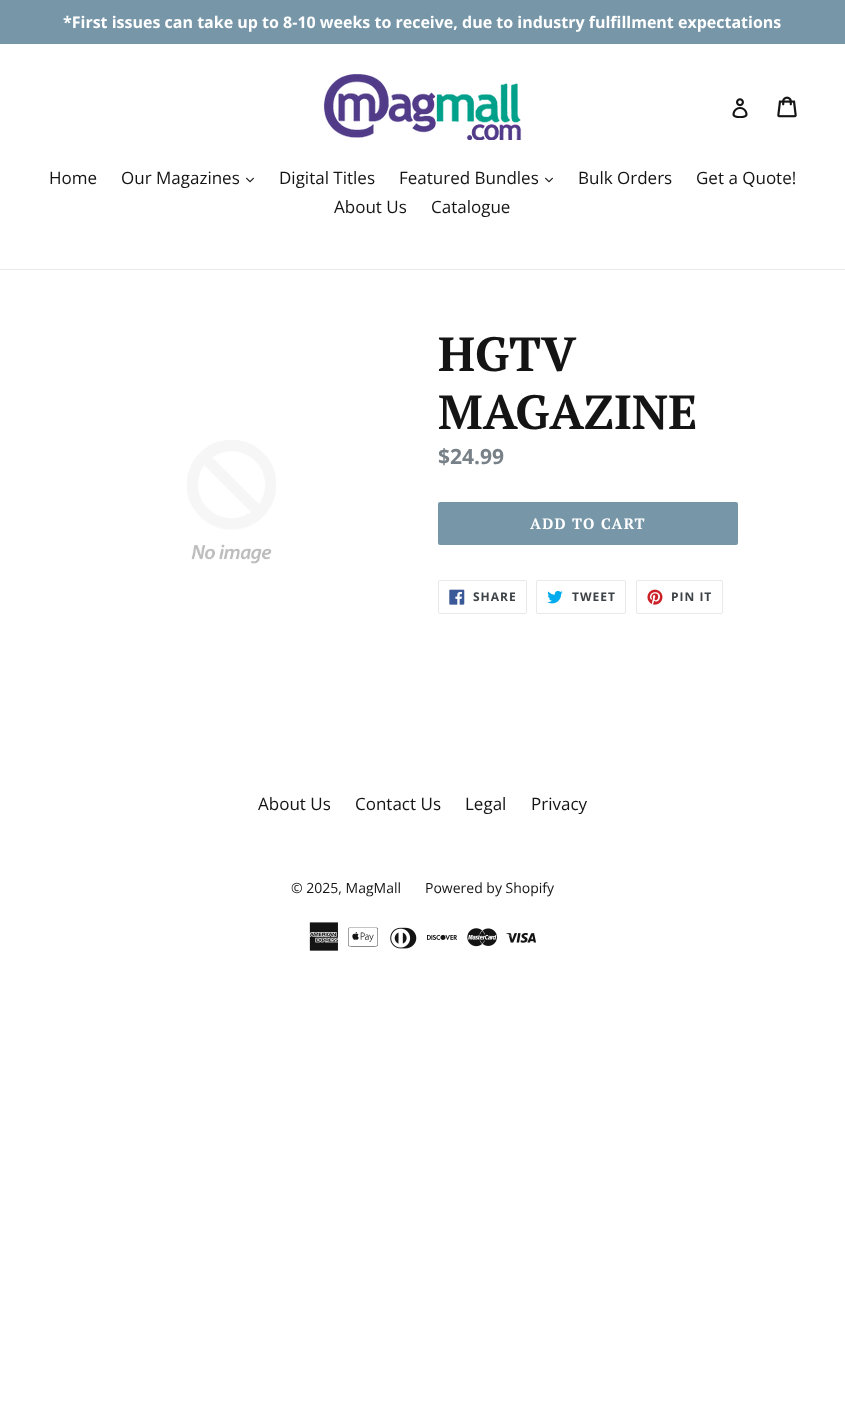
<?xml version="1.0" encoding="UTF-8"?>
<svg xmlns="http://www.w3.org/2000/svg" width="845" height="1426">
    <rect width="100%" height="100%" fill="#FFFFFF"/>
    <rect x="0" y="0" width="845" height="44" fill="#7796A8"/>
    <text x="63" y="28" font-family="Open Sans" font-size="16" font-weight="700" fill="#FFFFFF">*First issues can take up to 8-10 weeks to receive, due to industry fulfillment expectations</text>
    <image x="323" y="74" width="199" height="66" href="img_01.png"/>
    <image x="732" y="98" width="16" height="20" href="img_02.png"/>
    <image x="777" y="96" width="20" height="22" href="img_03.png"/>
    <rect x="0" y="269" width="845" height="1" fill="#E8E9EB"/>
    <text x="49" y="184" font-family="Open Sans" font-size="17" fill="#151414">Home</text>
    <text x="121" y="184" font-family="Open Sans" font-size="17" fill="#151414">Our Magazines</text>
    <image x="246" y="177" width="8" height="6" href="img_04.png"/>
    <text x="279" y="184" font-family="Open Sans" font-size="17" fill="#151414">Digital Titles</text>
    <text x="399" y="184" font-family="Open Sans" font-size="17" fill="#151414">Featured Bundles</text>
    <image x="545" y="177" width="8" height="6" href="img_04.png"/>
    <text x="578" y="184" font-family="Open Sans" font-size="17" fill="#151414">Bulk Orders</text>
    <text x="696" y="184" font-family="Open Sans" font-size="17" fill="#151414">Get a Quote!</text>
    <text x="334" y="213" font-family="Open Sans" font-size="17" fill="#151414">About Us</text>
    <text x="431" y="213" font-family="Open Sans" font-size="17" fill="#151414">Catalogue</text>
    <image x="187" y="440" width="89" height="124" href="img_05.png"/>
    <text font-family="PT Serif" font-size="48" font-weight="700" fill="#151414">
        <tspan x="438" y="371">HGTV</tspan>
        <tspan x="438" y="429">MAGAZINE</tspan>
    </text>
    <text x="438" y="464" font-family="Open Sans" font-size="21" font-weight="700" fill="#788188">$24.99</text>
    <rect x="438" y="502" width="300" height="43" rx="2" fill="#7796A8"/>
    <text x="530" y="529" font-family="PT Serif" font-size="15" font-weight="700" letter-spacing="1.25" fill="#FFFFFF">ADD TO CART</text>
    <rect x="438.5" y="580.5" width="88" height="33" rx="1.5" fill="none" stroke="#E8E9EB"/>
    <image x="449" y="589" width="16" height="16" href="img_06.png"/>
    <text x="473" y="601" font-family="Open Sans" font-size="12" font-weight="700" letter-spacing="1" fill="#3D4246">SHARE</text>
    <rect x="536.5" y="580.5" width="89" height="33" rx="1.5" fill="none" stroke="#E8E9EB"/>
    <image x="547" y="590" width="16" height="14" href="img_07.png"/>
    <text x="572" y="601" font-family="Open Sans" font-size="12" font-weight="700" letter-spacing="1" fill="#3D4246">TWEET</text>
    <rect x="636.5" y="580.5" width="86" height="33" rx="1.5" fill="none" stroke="#E8E9EB"/>
    <image x="647" y="589" width="16" height="16" href="img_08.png"/>
    <text x="671" y="601" font-family="Open Sans" font-size="12" font-weight="700" letter-spacing="1" fill="#3D4246">PIN IT</text>
    <text x="258" y="810" font-family="Open Sans" font-size="17" fill="#151414">About Us</text>
    <text x="355" y="810" font-family="Open Sans" font-size="17" fill="#151414">Contact Us</text>
    <text x="465" y="810" font-family="Open Sans" font-size="17" fill="#151414">Legal</text>
    <text x="531" y="810" font-family="Open Sans" font-size="17" fill="#151414">Privacy</text>
    <text x="291" y="893" font-family="Open Sans" font-size="14" fill="#151414">© 2025, MagMall</text>
    <text x="425" y="893" font-family="Open Sans" font-size="14" fill="#151414">Powered by Shopify</text>
    <image x="309" y="922" width="30" height="29" href="img_09.png"/>
    <image x="348" y="927" width="30" height="20" href="img_10.png"/>
    <image x="390" y="927" width="27" height="22" href="img_11.png"/>
    <image x="427" y="934" width="30" height="6" href="img_12.png"/>
    <image x="467" y="928" width="30" height="19" href="img_13.png"/>
    <image x="506" y="933" width="30" height="10" href="img_14.png"/>
</svg>
